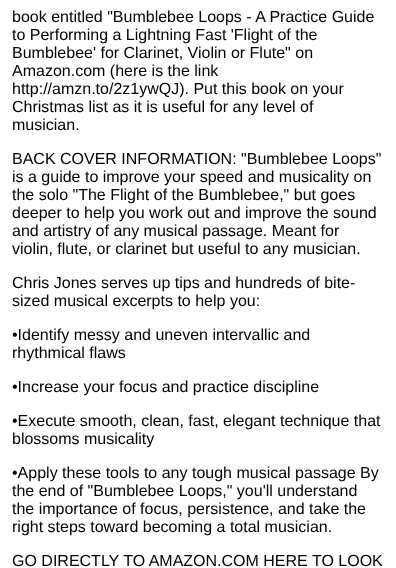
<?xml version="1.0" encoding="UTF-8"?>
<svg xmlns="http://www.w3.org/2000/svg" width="396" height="568">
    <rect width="100%" height="100%" fill="#FFFFFF"/>
    <text font-family="Liberation Sans" font-size="16" fill="#000000">
        <tspan x="12" y="22">book entitled "Bumblebee Loops - A Practice Guide</tspan>
        <tspan x="12" y="40">to Performing a Lightning Fast 'Flight of the</tspan>
        <tspan x="12" y="58">Bumblebee' for Clarinet, Violin or Flute" on</tspan>
        <tspan x="12" y="76">Amazon.com (here is the link</tspan>
        <tspan x="12" y="94">http://amzn.to/2z1ywQJ). Put this book on your</tspan>
        <tspan x="12" y="112">Christmas list as it is useful for any level of</tspan>
        <tspan x="12" y="130">musician.</tspan>
    </text>
    <text font-family="Liberation Sans" font-size="16" fill="#000000">
        <tspan x="12" y="164">BACK COVER INFORMATION: "Bumblebee Loops"</tspan>
        <tspan x="12" y="182">is a guide to improve your speed and musicality on</tspan>
        <tspan x="12" y="200">the solo "The Flight of the Bumblebee," but goes</tspan>
        <tspan x="12" y="218">deeper to help you work out and improve the sound</tspan>
        <tspan x="12" y="236">and artistry of any musical passage. Meant for</tspan>
        <tspan x="12" y="254">violin, flute, or clarinet but useful to any musician.</tspan>
    </text>
    <text font-family="Liberation Sans" font-size="16" fill="#000000">
        <tspan x="12" y="288">Chris Jones serves up tips and hundreds of bite-</tspan>
        <tspan x="12" y="306">sized musical excerpts to help you:</tspan>
    </text>
    <text font-family="Liberation Sans" font-size="16" fill="#000000">
        <tspan x="12" y="340">•Identify messy and uneven intervallic and</tspan>
        <tspan x="12" y="358">rhythmical flaws</tspan>
    </text>
    <text x="12" y="392" font-family="Liberation Sans" font-size="16" fill="#000000">•Increase your focus and practice discipline</text>
    <text font-family="Liberation Sans" font-size="16" fill="#000000">
        <tspan x="12" y="426">•Execute smooth, clean, fast, elegant technique that</tspan>
        <tspan x="12" y="444">blossoms musicality</tspan>
    </text>
    <text font-family="Liberation Sans" font-size="16" fill="#000000">
        <tspan x="12" y="478">•Apply these tools to any tough musical passage By</tspan>
        <tspan x="12" y="496">the end of "Bumblebee Loops," you'll understand</tspan>
        <tspan x="12" y="514">the importance of focus, persistence, and take the</tspan>
        <tspan x="12" y="532">right steps toward becoming a total musician.</tspan>
    </text>
    <text x="12" y="566" font-family="Liberation Sans" font-size="16" fill="#000000">GO DIRECTLY TO AMAZON.COM HERE TO LOOK</text>
</svg>
